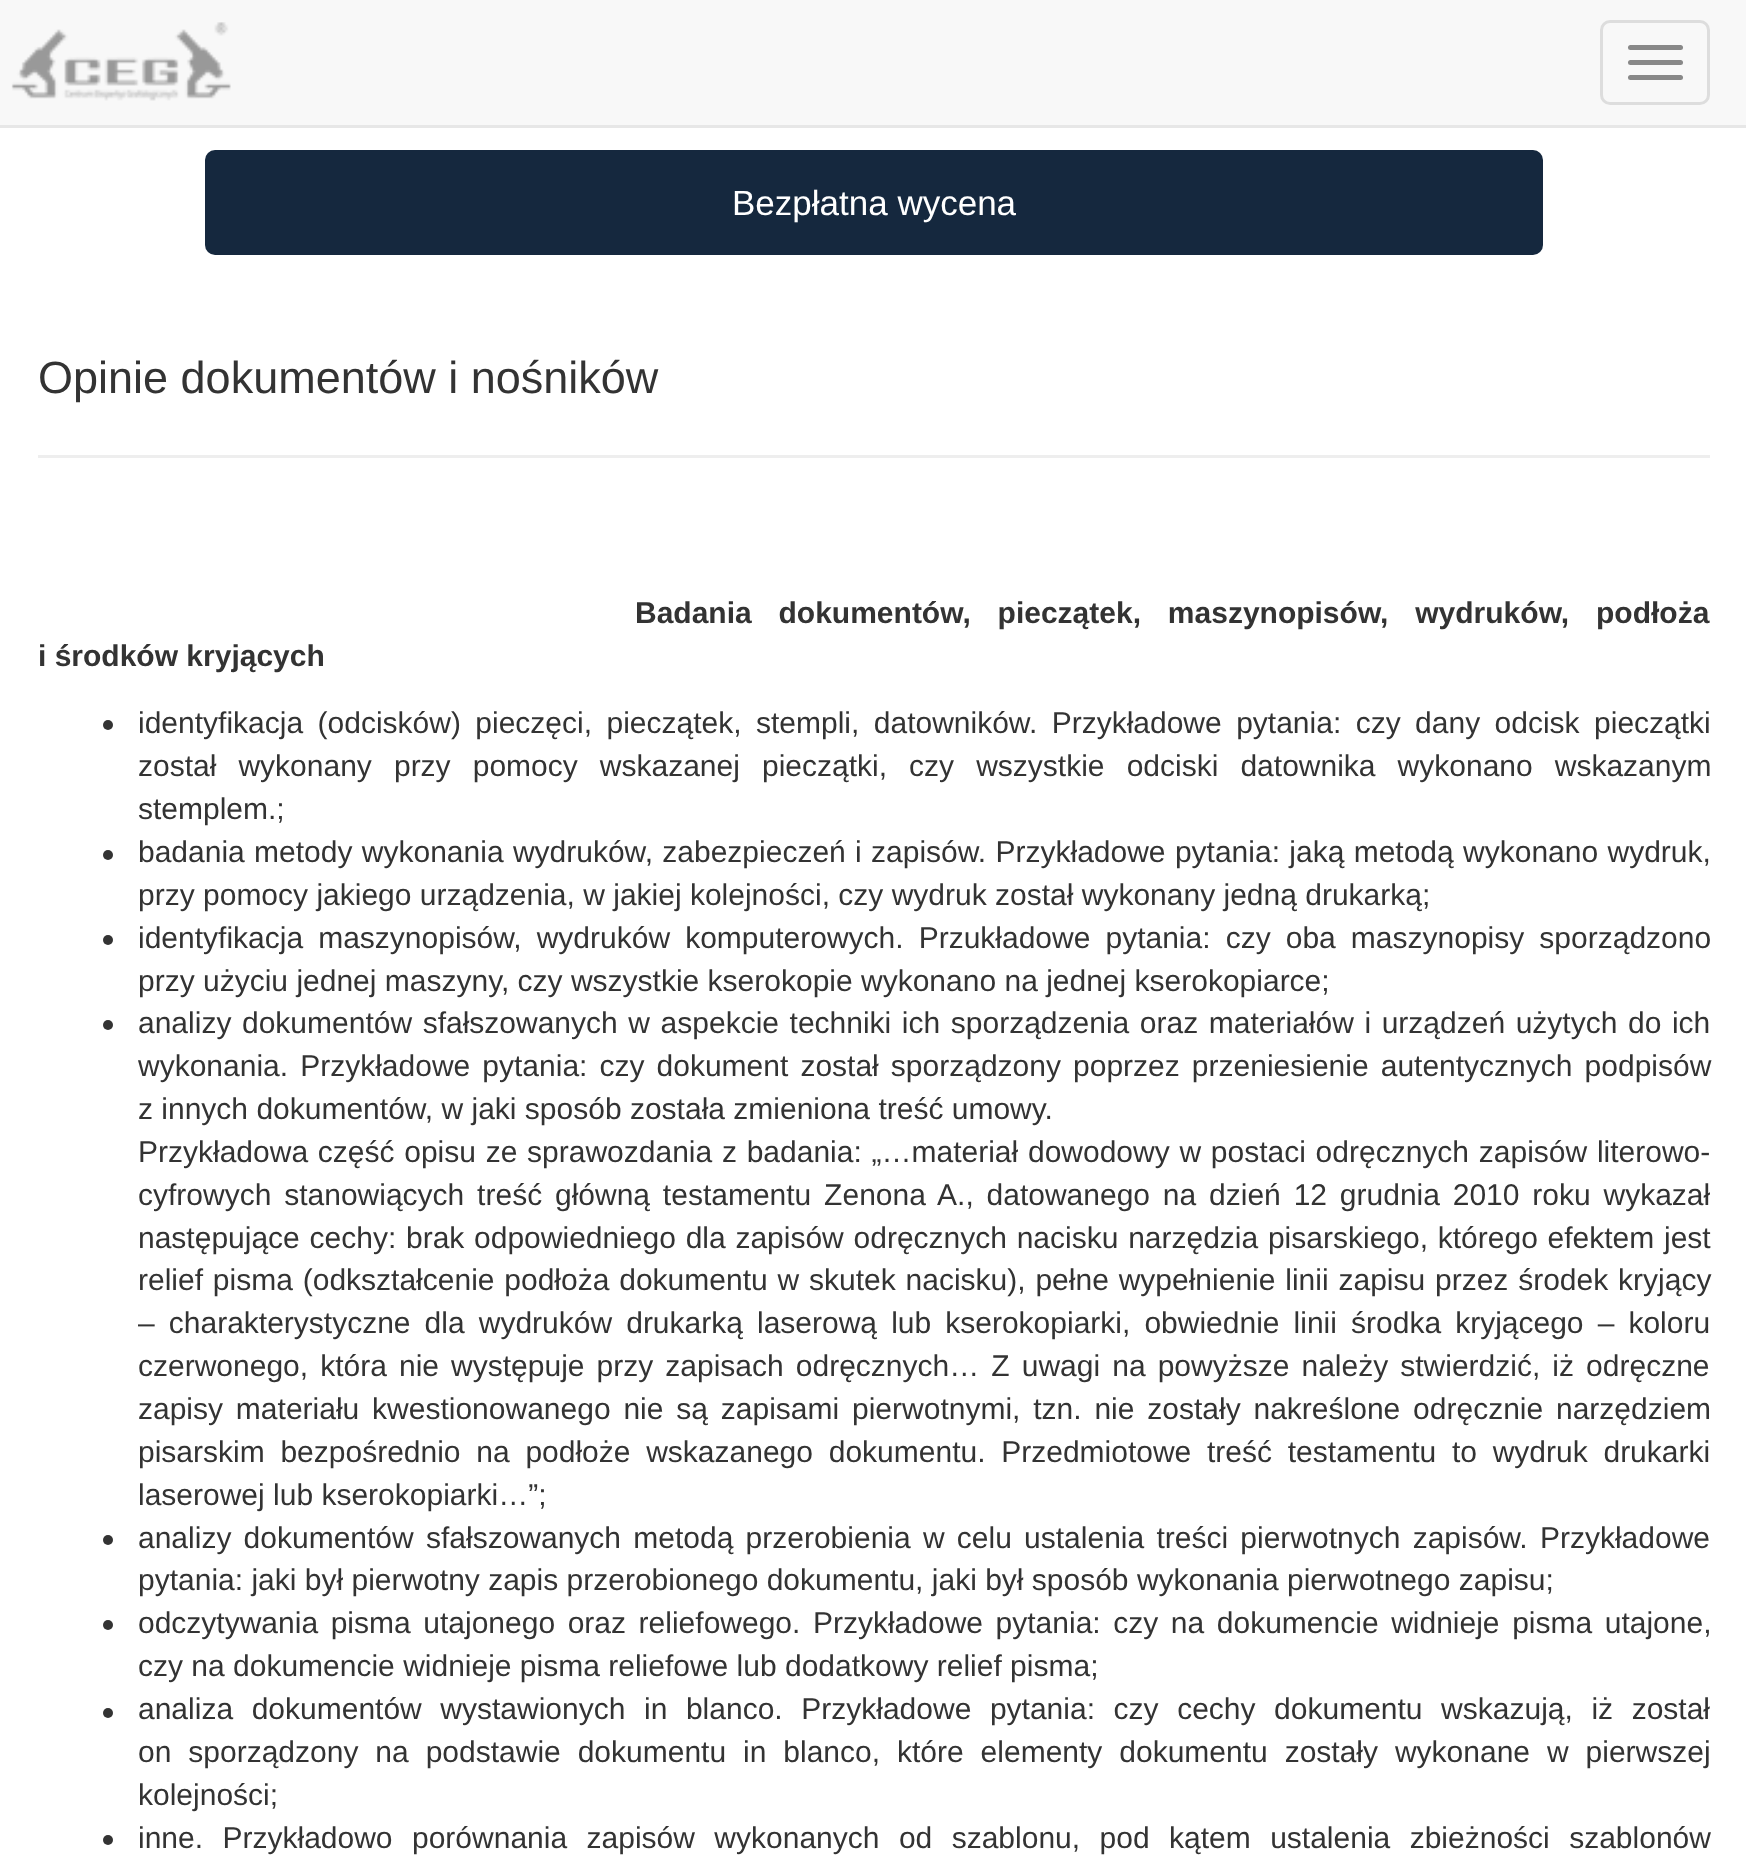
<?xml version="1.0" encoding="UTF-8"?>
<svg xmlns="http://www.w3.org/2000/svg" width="1746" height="1870">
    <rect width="100%" height="100%" fill="#FFFFFF"/>
    <rect x="0" y="0" width="1746" height="125" fill="#F8F8F8"/>
    <rect x="0" y="125" width="1746" height="3" fill="#E7E7E7"/>
    <image x="11" y="22" width="220" height="79" href="img_01.png"/>
    <rect x="1601.5" y="21.5" width="107" height="82" rx="8.5" fill="none" stroke="#DDDDDD" stroke-width="3"/>
    <rect x="1628" y="45" width="55" height="5" rx="2.5" fill="#888888"/>
    <rect x="1628" y="60" width="55" height="5" rx="2.5" fill="#888888"/>
    <rect x="1628" y="75" width="55" height="5" rx="2.5" fill="#888888"/>
    <rect x="205" y="150" width="1338" height="105" rx="10" fill="#15283E"/>
    <text x="732" y="215" font-family="Liberation Sans" font-size="35" fill="#FFFFFF">Bezpłatna wycena</text>
    <text x="38" y="393" font-family="Liberation Sans" font-size="45" fill="#333333">Opinie dokumentów i nośników</text>
    <rect x="38" y="455" width="1672" height="3" fill="#EEEEEE"/>
    <text x="635" y="623" word-spacing="18.5" font-family="Liberation Sans" font-size="30" font-weight="700" fill="#333333">Badania dokumentów, pieczątek, maszynopisów, wydruków, podłoża</text>
    <text x="38" y="666" font-family="Liberation Sans" font-size="30" font-weight="700" fill="#333333">i środków kryjących</text>
    <circle cx="108" cy="725" r="5" fill="#333333"/>
    <text font-family="Liberation Sans" font-size="30" fill="#333333">
        <tspan x="138" y="733" word-spacing="6.1">identyfikacja (odcisków) pieczęci, pieczątek, stempli, datowników. Przykładowe pytania: czy dany odcisk pieczątki</tspan>
        <tspan x="138" y="776" word-spacing="13.75">został wykonany przy pomocy wskazanej pieczątki, czy wszystkie odciski datownika wykonano wskazanym</tspan>
        <tspan x="138" y="819">stemplem.;</tspan>
    </text>
    <circle cx="108" cy="855" r="5" fill="#333333"/>
    <text font-family="Liberation Sans" font-size="30" fill="#333333">
        <tspan x="138" y="862" word-spacing="1">badania metody wykonania wydruków, zabezpieczeń i zapisów. Przykładowe pytania: jaką metodą wykonano wydruk,</tspan>
        <tspan x="138" y="905">przy pomocy jakiego urządzenia, w jakiej kolejności, czy wydruk został wykonany jedną drukarką;</tspan>
    </text>
    <circle cx="108" cy="940" r="5" fill="#333333"/>
    <text font-family="Liberation Sans" font-size="30" fill="#333333">
        <tspan x="138" y="948" word-spacing="6.75">identyfikacja maszynopisów, wydruków komputerowych. Przukładowe pytania: czy oba maszynopisy sporządzono</tspan>
        <tspan x="138" y="991">przy użyciu jednej maszyny, czy wszystkie kserokopie wykonano na jednej kserokopiarce;</tspan>
    </text>
    <circle cx="108" cy="1025" r="5" fill="#333333"/>
    <text font-family="Liberation Sans" font-size="30" fill="#333333">
        <tspan x="138" y="1033" word-spacing="2.25">analizy dokumentów sfałszowanych w aspekcie techniki ich sporządzenia oraz materiałów i urządzeń użytych do ich</tspan>
        <tspan x="138" y="1076" word-spacing="3.75">wykonania. Przykładowe pytania: czy dokument został sporządzony poprzez przeniesienie autentycznych podpisów</tspan>
        <tspan x="138" y="1119">z innych dokumentów, w jaki sposób została zmieniona treść umowy.</tspan>
        <tspan x="138" y="1162" word-spacing="1.4">Przykładowa część opisu ze sprawozdania z badania: „…materiał dowodowy w postaci odręcznych zapisów literowo-</tspan>
        <tspan x="138" y="1205" word-spacing="4.5">cyfrowych stanowiących treść główną testamentu Zenona A., datowanego na dzień 12 grudnia 2010 roku wykazał</tspan>
        <tspan x="138" y="1248" word-spacing="1.4">następujące cechy: brak odpowiedniego dla zapisów odręcznych nacisku narzędzia pisarskiego, którego efektem jest</tspan>
        <tspan x="138" y="1290" word-spacing="1.5">relief pisma (odkształcenie podłoża dokumentu w skutek nacisku), pełne wypełnienie linii zapisu przez środek kryjący</tspan>
        <tspan x="138" y="1333" word-spacing="5.75">– charakterystyczne dla wydruków drukarką laserową lub kserokopiarki, obwiednie linii środka kryjącego – koloru</tspan>
        <tspan x="138" y="1376" word-spacing="3.75">czerwonego, która nie występuje przy zapisach odręcznych… Z uwagi na powyższe należy stwierdzić, iż odręczne</tspan>
        <tspan x="138" y="1419" word-spacing="4.5">zapisy materiału kwestionowanego nie są zapisami pierwotnymi, tzn. nie zostały nakreślone odręcznie narzędziem</tspan>
        <tspan x="138" y="1462" word-spacing="7.4">pisarskim bezpośrednio na podłoże wskazanego dokumentu. Przedmiotowe treść testamentu to wydruk drukarki</tspan>
        <tspan x="138" y="1505">laserowej lub kserokopiarki…”;</tspan>
    </text>
    <circle cx="108" cy="1540" r="5" fill="#333333"/>
    <text font-family="Liberation Sans" font-size="30" fill="#333333">
        <tspan x="138" y="1548" word-spacing="3.9">analizy dokumentów sfałszowanych metodą przerobienia w celu ustalenia treści pierwotnych zapisów. Przykładowe</tspan>
        <tspan x="138" y="1590">pytania: jaki był pierwotny zapis przerobionego dokumentu, jaki był sposób wykonania pierwotnego zapisu;</tspan>
    </text>
    <circle cx="108" cy="1625" r="5" fill="#333333"/>
    <text font-family="Liberation Sans" font-size="30" fill="#333333">
        <tspan x="138" y="1633" word-spacing="4.25">odczytywania pisma utajonego oraz reliefowego. Przykładowe pytania: czy na dokumencie widnieje pisma utajone,</tspan>
        <tspan x="138" y="1676">czy na dokumencie widnieje pisma reliefowe lub dodatkowy relief pisma;</tspan>
    </text>
    <circle cx="108" cy="1713" r="5" fill="#333333"/>
    <text font-family="Liberation Sans" font-size="30" fill="#333333">
        <tspan x="138" y="1719" word-spacing="10.25">analiza dokumentów wystawionych in blanco. Przykładowe pytania: czy cechy dokumentu wskazują, iż został</tspan>
        <tspan x="138" y="1762" word-spacing="8.6">on sporządzony na podstawie dokumentu in blanco, które elementy dokumentu zostały wykonane w pierwszej</tspan>
        <tspan x="138" y="1805">kolejności;</tspan>
    </text>
    <circle cx="108" cy="1840" r="5" fill="#333333"/>
    <text x="138" y="1848" word-spacing="11.1" font-family="Liberation Sans" font-size="30" fill="#333333">inne. Przykładowo porównania zapisów wykonanych od szablonu, pod kątem ustalenia zbieżności szablonów</text>
</svg>
